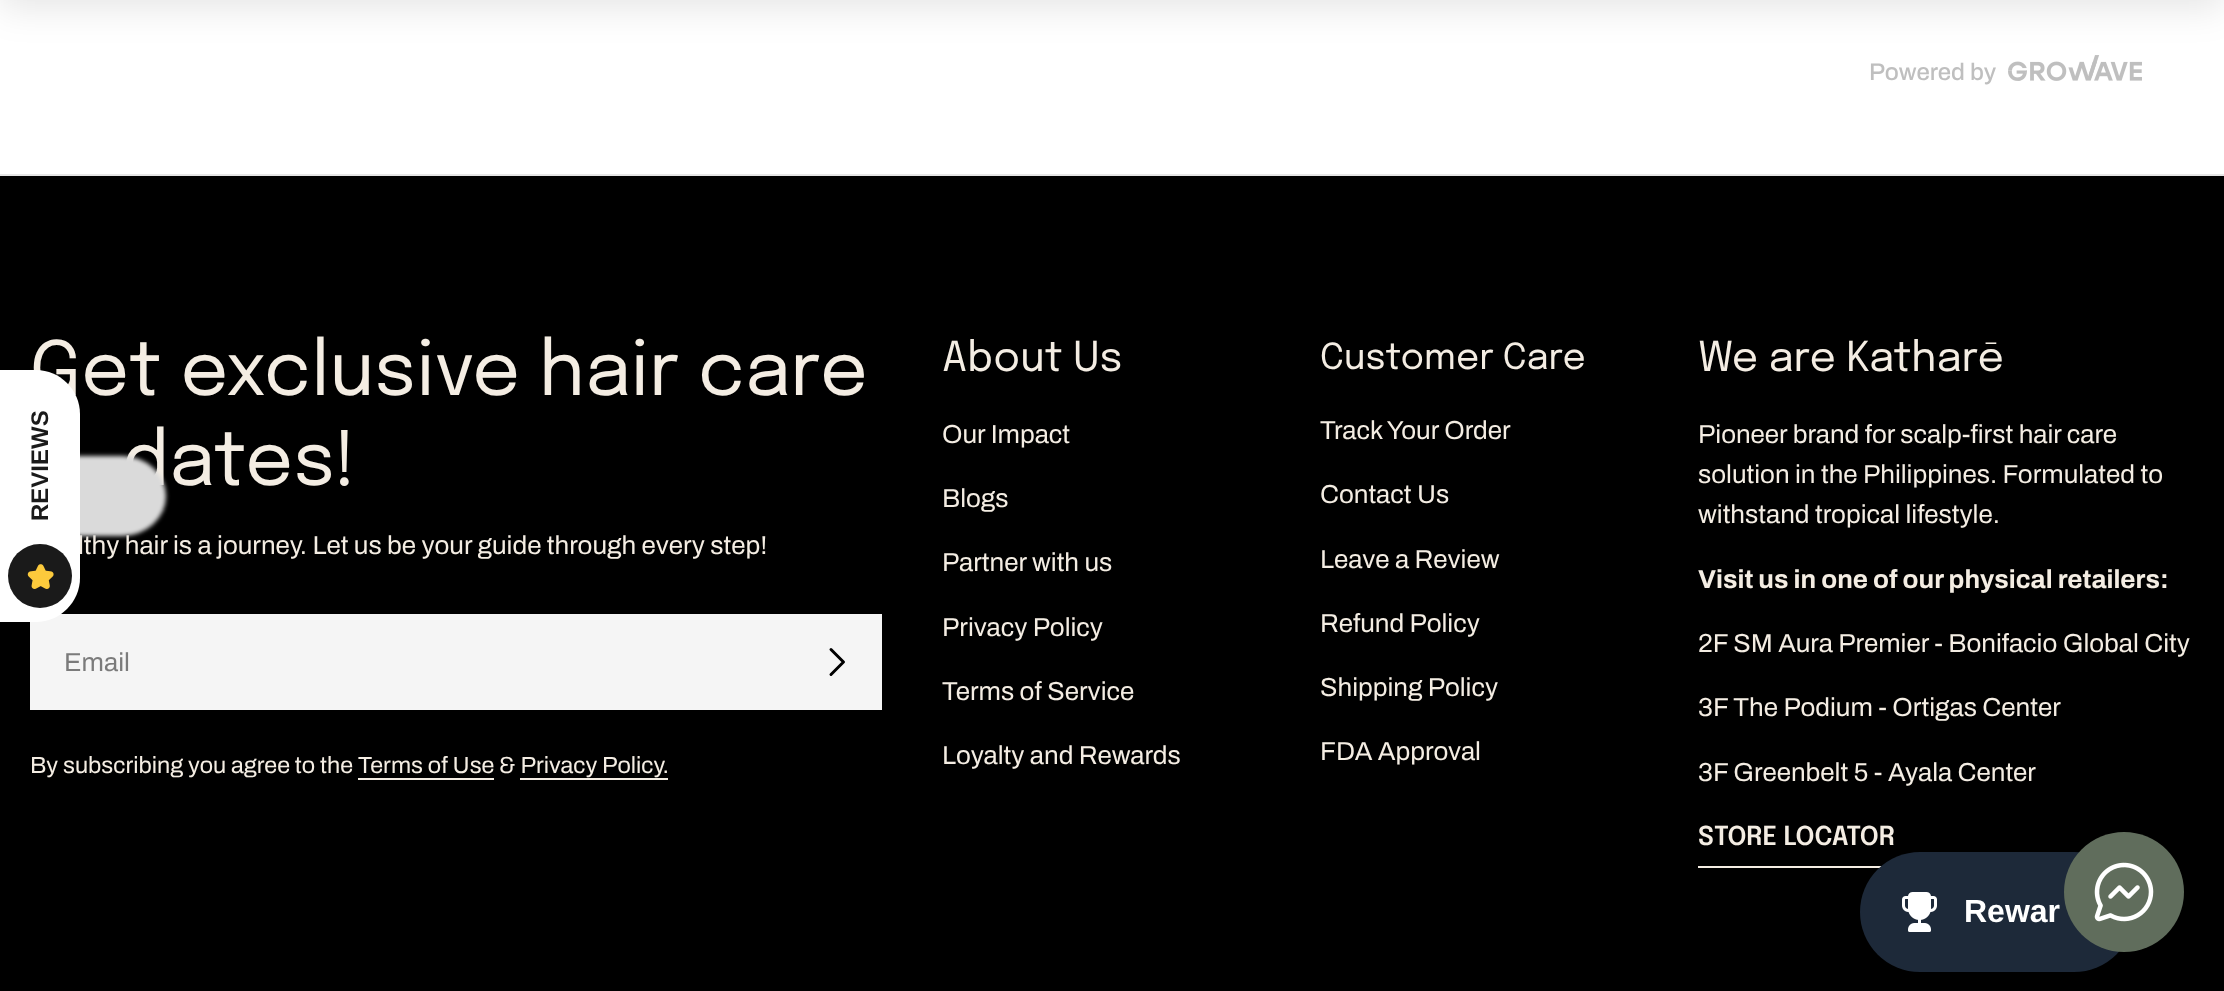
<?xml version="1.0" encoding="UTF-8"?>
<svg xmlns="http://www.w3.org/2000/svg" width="2224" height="991">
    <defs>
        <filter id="blur1" x="-50%" y="-200%" width="200%" height="500%"><feGaussianBlur stdDeviation="18"/></filter>
        <filter id="blur2" x="-50%" y="-200%" width="200%" height="500%"><feGaussianBlur stdDeviation="2"/></filter>
    </defs>
    <rect width="100%" height="100%" fill="#FFFFFF"/>
    <image x="2008" y="55" width="134" height="26" href="img_01.png"/>
    <rect x="0" y="-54" width="2224" height="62" fill="#000000" fill-opacity="0.1" filter="url(#blur1)"/>
    <text x="1869" y="80" font-family="Archivo" font-size="24" font-weight="500" fill="#BFBFBF">Powered by</text>
    <rect x="0" y="176" width="2224" height="815" fill="#000000"/>
    <rect x="0" y="174" width="2224" height="2" fill="#E6E6E6"/>
    <text x="30" y="395" font-family="Epilogue" font-size="74.75" fill="#F4EDE3">Get exclusive hair care</text>
    <text x="122" y="485" font-family="Epilogue" font-size="74.75" fill="#F4EDE3">dates!</text>
    <text x="78" y="554" font-family="Archivo" font-size="26" fill="#F4EDE3">lthy hair is a journey. Let us be your guide through every step!</text>
    <rect x="30" y="614" width="852" height="96" fill="#F5F5F5"/>
    <text x="64" y="671" font-family="Archivo" font-size="26" fill="#7B7B7B">Email</text>
    <path d="M 831 649.5 L 843.5 662 L 831 674.5" fill="none" stroke="#000000" stroke-width="3" stroke-linecap="round" stroke-linejoin="round"/>
    <text x="30" y="773" font-family="Archivo" font-size="23.4" fill="#F4EDE3">By subscribing you agree to the</text>
    <text x="358" y="773" font-family="Archivo" font-size="23.4" fill="#F4EDE3">Terms of Use &amp; Privacy Policy.</text>
    <rect x="358" y="778" width="136" height="2" fill="#F4EDE3"/>
    <rect x="520" y="778" width="148" height="2" fill="#F4EDE3"/>
    <text x="942" y="371" font-family="Epilogue" font-size="41" fill="#F4EDE3">About Us</text>
    <text x="942" y="443" font-family="Archivo" font-size="26" fill="#F4EDE3">Our Impact</text>
    <text x="942" y="507" font-family="Archivo" font-size="26" fill="#F4EDE3">Blogs</text>
    <text x="942" y="571" font-family="Archivo" font-size="26" fill="#F4EDE3">Partner with us</text>
    <text x="942" y="636" font-family="Archivo" font-size="26" fill="#F4EDE3">Privacy Policy</text>
    <text x="942" y="700" font-family="Archivo" font-size="26" fill="#F4EDE3">Terms of Service</text>
    <text x="942" y="764" font-family="Archivo" font-size="26" fill="#F4EDE3">Loyalty and Rewards</text>
    <text x="1320" y="369" font-family="Epilogue" font-size="36" fill="#F4EDE3">Customer Care</text>
    <text x="1320" y="439" font-family="Archivo" font-size="26" fill="#F4EDE3">Track Your Order</text>
    <text x="1320" y="503" font-family="Archivo" font-size="26" fill="#F4EDE3">Contact Us</text>
    <text x="1320" y="568" font-family="Archivo" font-size="26" fill="#F4EDE3">Leave a Review</text>
    <text x="1320" y="632" font-family="Archivo" font-size="26" fill="#F4EDE3">Refund Policy</text>
    <text x="1320" y="696" font-family="Archivo" font-size="26" fill="#F4EDE3">Shipping Policy</text>
    <text x="1320" y="760" font-family="Archivo" font-size="26" fill="#F4EDE3">FDA Approval</text>
    <text x="1698" y="371" font-family="Epilogue" font-size="41" fill="#F4EDE3">We are Katharē</text>
    <text font-family="Archivo" font-size="26" fill="#F4EDE3">
        <tspan x="1698" y="443">Pioneer brand for scalp-first hair care</tspan>
        <tspan x="1698" y="483">solution in the Philippines. Formulated to</tspan>
        <tspan x="1698" y="523">withstand tropical lifestyle.</tspan>
    </text>
    <text x="1698" y="588" font-family="Archivo" font-size="26" font-weight="700" fill="#F4EDE3">Visit us in one of our physical retailers:</text>
    <text x="1698" y="652" font-family="Archivo" font-size="26" fill="#F4EDE3">2F SM Aura Premier - Bonifacio Global City</text>
    <text x="1698" y="716" font-family="Archivo" font-size="26" fill="#F4EDE3">3F The Podium - Ortigas Center</text>
    <text x="1698" y="781" font-family="Archivo" font-size="26" fill="#F4EDE3">3F Greenbelt 5 - Ayala Center</text>
    <text x="1698" y="845" font-family="Epilogue" font-size="26" font-weight="600" fill="#F4EDE3">STORE LOCATOR</text>
    <rect x="1698" y="866" width="184" height="2" fill="#F4EDE3"/>
    <rect x="-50" y="456" width="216" height="80" rx="44" fill="#DADADA" filter="url(#blur2)"/>
    <path d="M 0 622 V 370 H 36 C 60 370 80 390 80 414 V 578 C 80 602 60 622 36 622 Z" fill="#FFFFFF"/>
    <text x="48" y="521" transform="rotate(-90 48 521)" font-family="Liberation Sans" font-size="24" font-weight="700" fill="#1A1A1A">REVIEWS</text>
    <circle cx="40" cy="576" r="32" fill="#1A1A1A"/>
    <image x="27" y="564" width="27" height="25" href="img_02.png"/>
    <rect x="1860" y="852" width="274" height="120" rx="60" fill="#1D2939"/>
    <image x="1902" y="892" width="35" height="40" href="img_03.png"/>
    <text x="1964" y="922" font-family="Liberation Sans" font-size="32" font-weight="700" fill="#FFFFFF">Rewar</text>
    <circle cx="2124" cy="892" r="60" fill="#606D5C"/>
    <image x="2094" y="862" width="60" height="60" href="img_04.png"/>
</svg>
